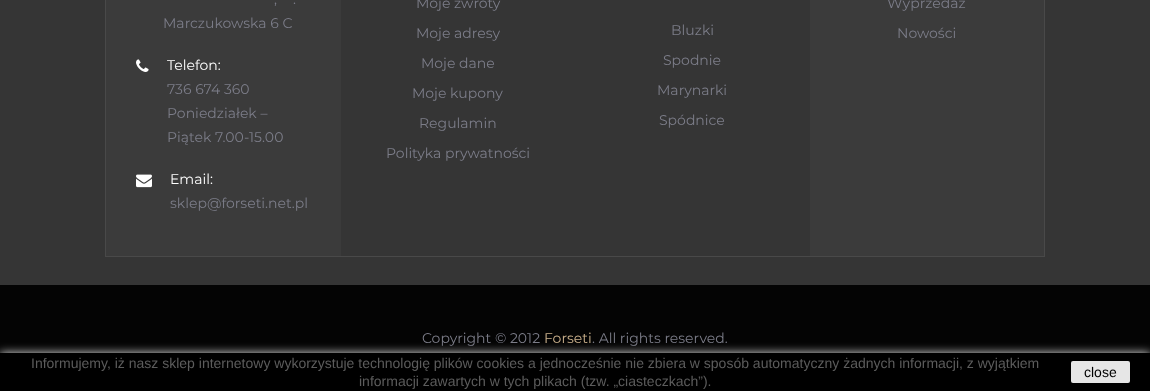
<?xml version="1.0" encoding="UTF-8"?>
<svg xmlns="http://www.w3.org/2000/svg" width="1150" height="391">
    <defs>
        <filter id="blur1" x="-50%" y="-200%" width="200%" height="500%"><feGaussianBlur stdDeviation="5"/></filter>
    </defs>
    <rect width="100%" height="100%" fill="#353535"/>
    <rect x="105.5" y="-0.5" width="939" height="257" fill="none" stroke="#494949"/>
    <rect x="106" y="0" width="235" height="256" fill="#3B3B3B"/>
    <text x="274" y="4" font-family="Montserrat" font-size="14" fill="#7C7D89">,</text>
    <text x="293" y="4" font-family="Montserrat" font-size="14" fill="#7C7D89">.</text>
    <text x="163" y="28" font-family="Montserrat" font-size="14" fill="#7C7D89">Marczukowska 6 C</text>
    <image x="136" y="59" width="13" height="13" href="img_01.png"/>
    <text x="167" y="70" font-family="Montserrat" font-size="14" fill="#FFFFFF">Telefon:</text>
    <text font-family="Montserrat" font-size="14" fill="#7C7D89">
        <tspan x="167" y="94">736 674 360</tspan>
        <tspan x="167" y="118">Poniedziałek –</tspan>
        <tspan x="167" y="142">Piątek 7.00-15.00</tspan>
    </text>
    <image x="136" y="174" width="16" height="14" href="img_02.png"/>
    <text x="170" y="184" font-family="Montserrat" font-size="14" fill="#FFFFFF">Email:</text>
    <text x="170" y="208" font-family="Montserrat" font-size="14" fill="#7C7D89">sklep@forseti.net.pl</text>
    <text x="416" y="8" font-family="Montserrat" font-size="14" fill="#7C7D89">Moje zwroty</text>
    <text x="416" y="38" font-family="Montserrat" font-size="14" fill="#7C7D89">Moje adresy</text>
    <text x="421" y="68" font-family="Montserrat" font-size="14" fill="#7C7D89">Moje dane</text>
    <text x="412" y="98" font-family="Montserrat" font-size="14" fill="#7C7D89">Moje kupony</text>
    <text x="419" y="128" font-family="Montserrat" font-size="14" fill="#7C7D89">Regulamin</text>
    <text x="386" y="158" font-family="Montserrat" font-size="14" fill="#7C7D89">Polityka prywatności</text>
    <text x="671" y="35" font-family="Montserrat" font-size="14" fill="#7C7D89">Bluzki</text>
    <text x="663" y="65" font-family="Montserrat" font-size="14" fill="#7C7D89">Spodnie</text>
    <text x="657" y="95" font-family="Montserrat" font-size="14" fill="#7C7D89">Marynarki</text>
    <text x="659" y="125" font-family="Montserrat" font-size="14" fill="#7C7D89">Spódnice</text>
    <rect x="810" y="0" width="234" height="256" fill="#3B3B3B"/>
    <text x="887" y="8" font-family="Montserrat" font-size="14" fill="#7C7D89">Wyprzedaż</text>
    <text x="897" y="38" font-family="Montserrat" font-size="14" fill="#7C7D89">Nowości</text>
    <rect x="0" y="285" width="1150" height="68" fill="#040404"/>
    <text x="422" y="343" font-family="Montserrat" font-size="14" fill="#7C7D89">Copyright © 2012</text>
    <text x="544" y="343" font-family="Montserrat" font-size="14" fill="#CCB28D">Forseti</text>
    <text x="592" y="343" font-family="Montserrat" font-size="14" fill="#7C7D89">. All rights reserved.</text>
    <rect x="0" y="353" width="1150" height="38" fill="#FFFFFF" fill-opacity="0.9" filter="url(#blur1)"/>
    <rect x="0" y="353" width="1150" height="38" fill="#000000"/>
    <text x="31" y="368" font-family="Liberation Sans" font-size="14" fill="#5C5C5C">Informujemy, iż nasz sklep internetowy wykorzystuje technologię plików cookies a jednocześnie nie zbiera w sposób automatyczny żadnych informacji, z wyjątkiem</text>
    <text x="359" y="386" font-family="Liberation Sans" font-size="14" fill="#5C5C5C">informacji zawartych w tych plikach (tzw. „ciasteczkach”).</text>
    <rect x="1071" y="361" width="59" height="22" rx="2" fill="#E6E6E6"/>
    <text x="1084" y="377" font-family="Liberation Sans" font-size="14" fill="#000000">close</text>
</svg>
